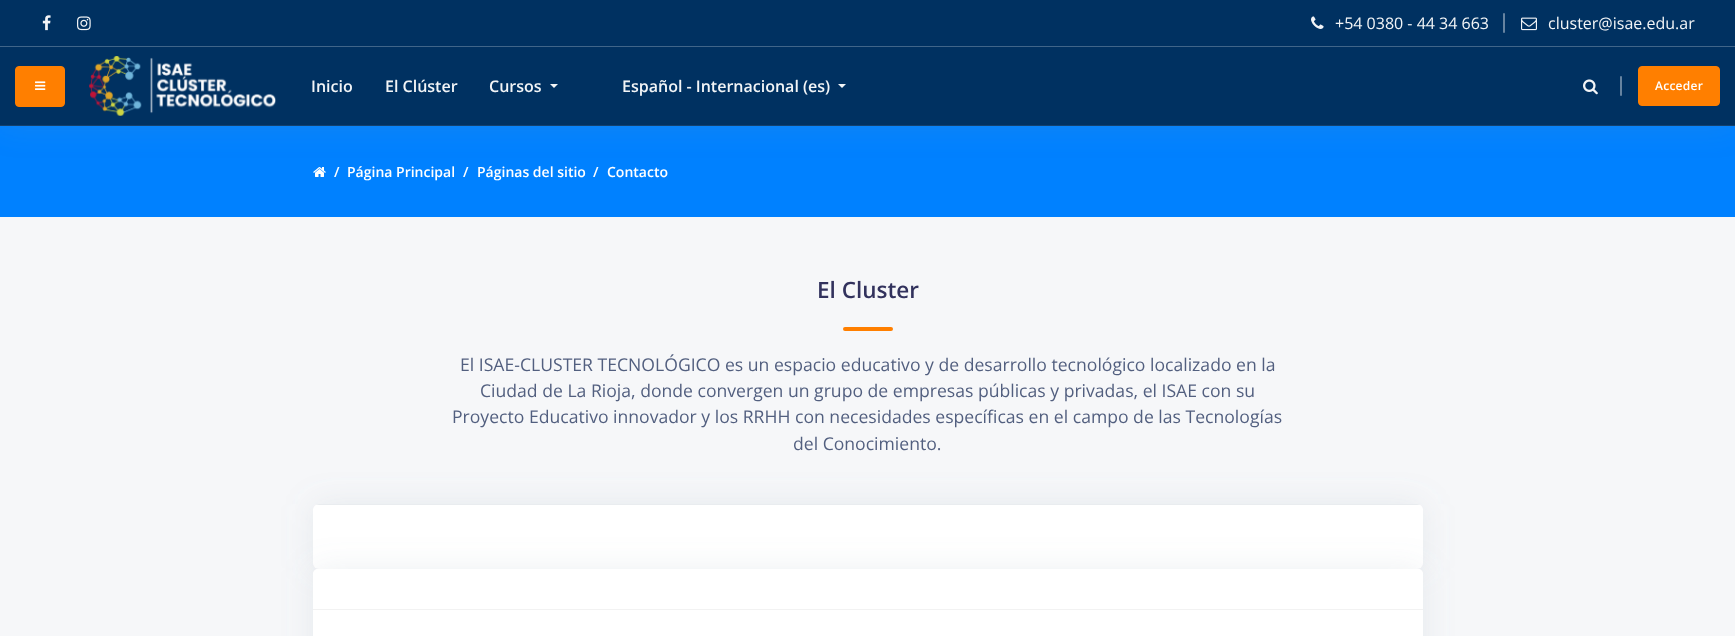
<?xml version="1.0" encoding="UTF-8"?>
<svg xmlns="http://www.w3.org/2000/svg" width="1735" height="636">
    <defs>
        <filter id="blur1" x="-50%" y="-200%" width="200%" height="500%"><feGaussianBlur stdDeviation="16"/></filter>
        <clipPath id="clip1"><rect x="313" y="504" width="1110" height="65" rx="6"/></clipPath>
    </defs>
    <rect width="100%" height="100%" fill="#0081FF"/>
    <image x="313" y="167" width="13" height="10" href="img_08.png"/>
    <rect x="0" y="0" width="1735" height="126" fill="#8898AA" fill-opacity="0.15" filter="url(#blur1)"/>
    <rect x="0" y="0" width="1735" height="46" fill="#003161"/>
    <rect x="0" y="46" width="1735" height="1" fill="#406589"/>
    <image x="42" y="15" width="9" height="16" href="img_01.png"/>
    <image x="77" y="16" width="14" height="15" href="img_02.png"/>
    <image x="1311" y="16" width="13" height="13" href="img_03.png"/>
    <text x="1335" y="29" font-family="Open Sans" font-size="16" fill="#F2F5F7">+54 0380 - 44 34 663</text>
    <rect x="1503" y="13" width="2" height="20" rx="1" fill="#6683A0"/>
    <image x="1521" y="17" width="16" height="14" href="img_04.png"/>
    <text x="1548" y="29" font-family="Open Sans" font-size="16" fill="#F2F5F7">cluster@isae.edu.ar</text>
    <rect x="0" y="47" width="1735" height="78" fill="#003161"/>
    <rect x="0" y="125" width="1735" height="1" fill="#14416E"/>
    <rect x="15.5" y="66.5" width="49" height="40" rx="3.5" fill="#FF7F00" stroke="#FF7F00"/>
    <image x="35" y="81" width="11" height="9" href="img_05.png"/>
    <image x="89" y="56" width="187" height="60" href="img_06.png"/>
    <text x="311" y="92" font-family="Open Sans" font-size="16" font-weight="600" fill="#F2F5F7">Inicio</text>
    <text x="385" y="92" font-family="Open Sans" font-size="16" font-weight="600" fill="#F2F5F7">El Clúster</text>
    <text x="489" y="92" font-family="Open Sans" font-size="16" font-weight="600" fill="#F2F5F7">Cursos</text>
    <path d="M 550 84 H 558 L 554 88 Z" fill="#F2F5F7"/>
    <text x="622" y="92" font-family="Open Sans" font-size="16" font-weight="600" fill="#F2F5F7">Español - Internacional (es)</text>
    <path d="M 838 84 H 846 L 842 88 Z" fill="#F2F5F7"/>
    <image x="1583" y="79" width="15" height="16" href="img_07.png"/>
    <rect x="1620" y="76" width="2" height="20" rx="1" fill="#6683A0"/>
    <rect x="1638.5" y="66.5" width="81" height="39" rx="3.5" fill="#FF7F00" stroke="#FF7F00"/>
    <text x="1655" y="90" font-family="Open Sans" font-size="12" font-weight="600" letter-spacing="0.25" fill="#FFFFFF">Acceder</text>
    <text x="334" y="177" font-family="Open Sans" font-size="14" font-weight="600" fill="#FFFFFF">/</text>
    <text x="347" y="177" font-family="Open Sans" font-size="14" font-weight="600" fill="#FFFFFF">Página Principal</text>
    <text x="463" y="177" font-family="Open Sans" font-size="14" font-weight="600" fill="#FFFFFF">/</text>
    <text x="477" y="177" font-family="Open Sans" font-size="14" font-weight="600" fill="#FFFFFF">Páginas del sitio</text>
    <text x="593" y="177" font-family="Open Sans" font-size="14" font-weight="600" fill="#FFFFFF">/</text>
    <text x="607" y="177" font-family="Open Sans" font-size="14" font-weight="600" fill="#FFFFFF">Contacto</text>
    <rect x="0" y="217" width="1735" height="419" fill="#F6F7F9"/>
    <text x="817" y="298" font-family="Open Sans" font-size="22.5" font-weight="600" fill="#32325D">El Cluster</text>
    <rect x="843" y="327" width="50" height="4" rx="2" fill="#FF7F00"/>
    <text x="460" y="371" font-family="Open Sans" font-size="17.6" fill="#525F7F">El ISAE-CLUSTER TECNOLÓGICO es un espacio educativo y de desarrollo tecnológico localizado en la</text>
    <text x="480" y="397" font-family="Open Sans" font-size="17.6" fill="#525F7F">Ciudad de La Rioja, donde convergen un grupo de empresas públicas y privadas, el ISAE con su</text>
    <text x="452" y="423" font-family="Open Sans" font-size="17.6" fill="#525F7F">Proyecto Educativo innovador y los RRHH con necesidades específicas en el campo de las Tecnologías</text>
    <text x="793" y="450" font-family="Open Sans" font-size="17.6" fill="#525F7F">del Conocimiento.</text>
    <rect x="313" y="504" width="1110" height="65" rx="6" fill="#8898AA" fill-opacity="0.15" filter="url(#blur1)"/>
    <rect x="313" y="504" width="1110" height="65" rx="6" fill="#FFFFFF"/>
    <g clip-path="url(#clip1)">
        <rect x="313" y="504" width="1110" height="1" fill="#E9ECEF"/>
    </g>
    <rect x="313" y="569" width="1110" height="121" rx="6" fill="#8898AA" fill-opacity="0.15" filter="url(#blur1)"/>
    <rect x="313" y="569" width="1110" height="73" rx="6" fill="#FFFFFF"/>
    <path d="M 318 569 H 1418 C 1421 569 1423 571 1423 574 V 610 H 313 V 574 C 313 571 315 569 318 569 Z" fill="#FFFFFF"/>
    <rect x="313" y="609" width="1110" height="1" fill="#F2F2F2"/>
</svg>
